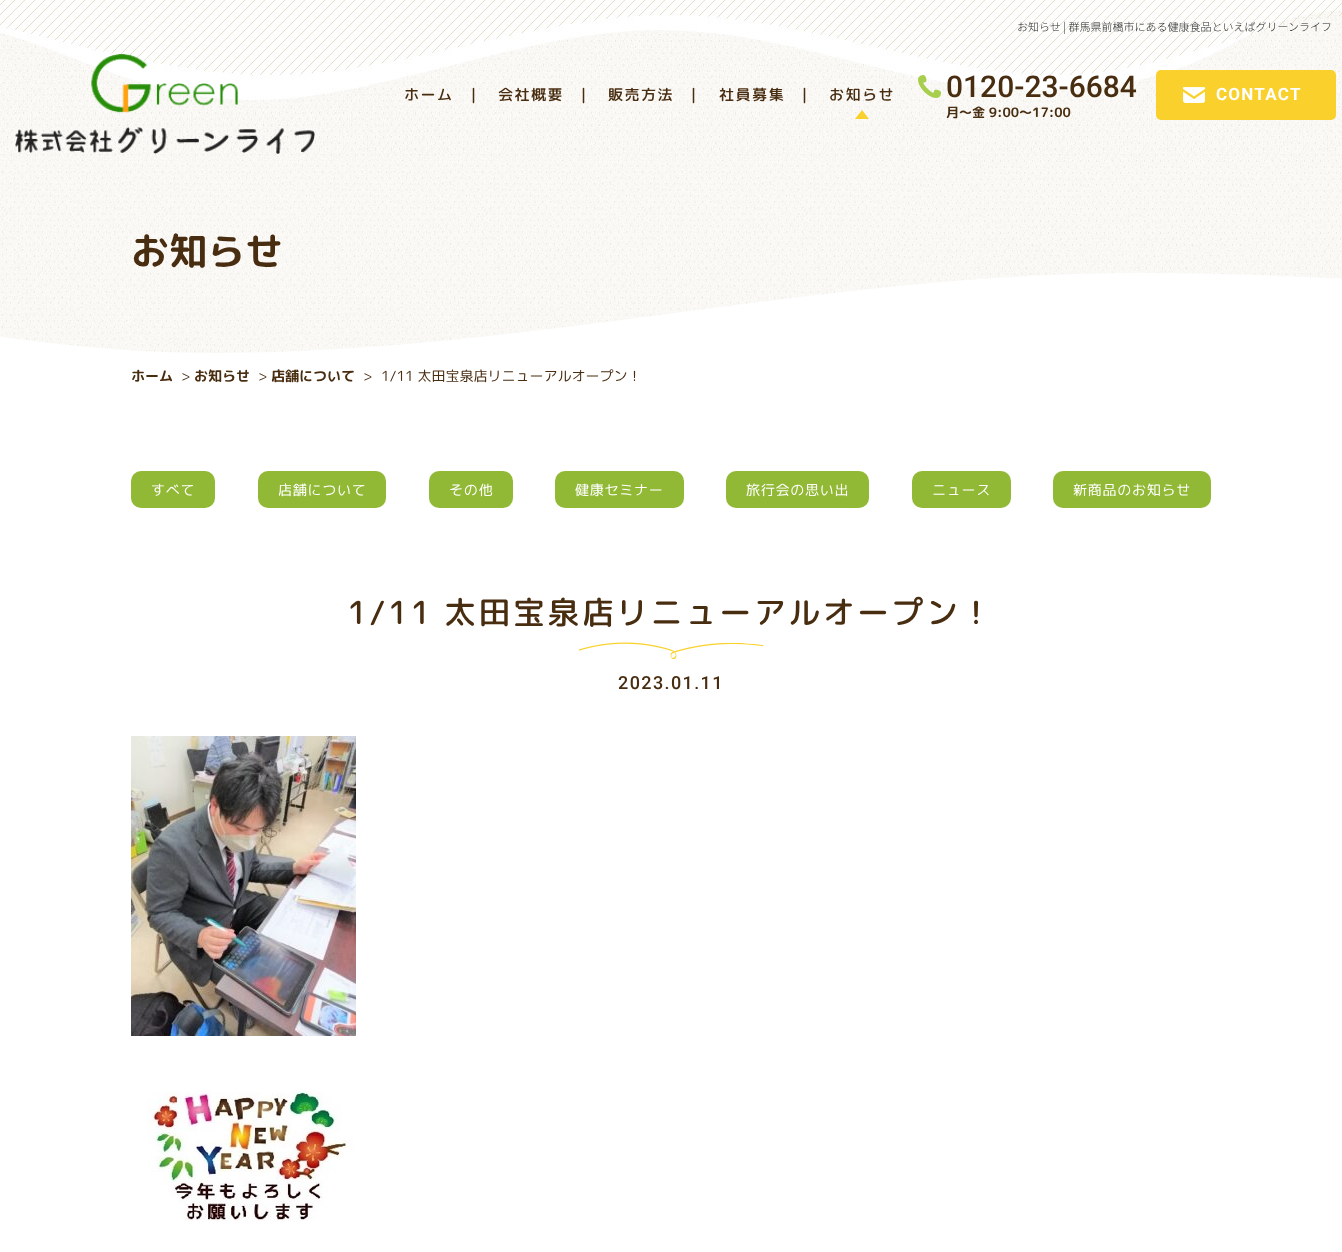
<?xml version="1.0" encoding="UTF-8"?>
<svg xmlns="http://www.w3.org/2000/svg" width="1342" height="1252">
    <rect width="100%" height="100%" fill="#FFFFFF"/>
    <image x="0" y="0" width="1342" height="160" href="img_01.png"/>
    <text x="1017" y="31" font-family="Noto Sans JP" font-size="11" font-weight="100" fill="#232323">お知らせ | 群馬県前橋市にある健康食品といえばグリーンライフ</text>
    <image x="15" y="54" width="300" height="100" href="img_02.png"/>
    <text x="404" y="100" font-family="'Rounded Mplus 1c'" font-size="15" font-weight="500" letter-spacing="1.5" fill="#492D11">ホーム</text>
    <text x="466" y="100" font-family="'Rounded Mplus 1c'" font-size="15" font-weight="500" letter-spacing="1.5" fill="#492D11">｜</text>
    <text x="498" y="100" font-family="'Rounded Mplus 1c'" font-size="15" font-weight="500" letter-spacing="1.5" fill="#492D11">会社概要</text>
    <text x="576" y="100" font-family="'Rounded Mplus 1c'" font-size="15" font-weight="500" letter-spacing="1.5" fill="#492D11">｜</text>
    <text x="608" y="100" font-family="'Rounded Mplus 1c'" font-size="15" font-weight="500" letter-spacing="1.5" fill="#492D11">販売方法</text>
    <text x="686" y="100" font-family="'Rounded Mplus 1c'" font-size="15" font-weight="500" letter-spacing="1.5" fill="#492D11">｜</text>
    <text x="719" y="100" font-family="'Rounded Mplus 1c'" font-size="15" font-weight="500" letter-spacing="1.5" fill="#492D11">社員募集</text>
    <text x="797" y="100" font-family="'Rounded Mplus 1c'" font-size="15" font-weight="500" letter-spacing="1.5" fill="#492D11">｜</text>
    <text x="829" y="100" font-family="'Rounded Mplus 1c'" font-size="15" font-weight="500" letter-spacing="1.5" fill="#492D11">お知らせ</text>
    <image x="855" y="110" width="14" height="9" href="img_03.png"/>
    <image x="918" y="75" width="23" height="23" href="img_04.png"/>
    <text x="946" y="97" font-family="Roboto" font-size="30" font-weight="500" fill="#492D11">0120-23-6684</text>
    <text x="946" y="117" font-family="'Rounded Mplus 1c Bold'" font-size="13" font-weight="700" fill="#492D11">月～金 9:00～17:00</text>
    <rect x="1156" y="70" width="180" height="50" rx="5" fill="#FAD12C"/>
    <image x="1183" y="87" width="22" height="16" href="img_05.png"/>
    <text x="1216" y="100" font-family="Roboto" font-size="17" font-weight="700" letter-spacing="1.25" fill="#FFFFFF">CONTACT</text>
    <image x="0" y="160" width="1342" height="193" href="img_06.png"/>
    <text x="131" y="265" font-family="'Rounded Mplus 1c Bold'" font-size="38" font-weight="700" fill="#492D11">お知らせ</text>
    <text x="131" y="381" font-family="'Rounded Mplus 1c Bold'" font-size="14" font-weight="700" fill="#492D11">ホーム</text>
    <text x="181" y="381" font-family="'Rounded Mplus 1c'" font-size="14" fill="#492D11">&gt;</text>
    <text x="194" y="381" font-family="'Rounded Mplus 1c Bold'" font-size="14" font-weight="700" fill="#492D11">お知らせ</text>
    <text x="258" y="381" font-family="'Rounded Mplus 1c'" font-size="14" fill="#492D11">&gt;</text>
    <text x="271" y="381" font-family="'Rounded Mplus 1c Bold'" font-size="14" font-weight="700" fill="#492D11">店舗について</text>
    <text x="363" y="381" font-family="'Rounded Mplus 1c'" font-size="14" fill="#492D11">&gt;</text>
    <text x="381" y="381" font-family="'Rounded Mplus 1c'" font-size="14" fill="#492D11">1/11 太田宝泉店リニューアルオープン！</text>
    <rect x="131" y="471" width="84" height="37" rx="10" fill="#92B936"/>
    <text x="151" y="495" font-family="'Rounded Mplus 1c'" font-size="14" letter-spacing="0.75" fill="#FFFFFF">すべて</text>
    <rect x="258" y="471" width="128" height="37" rx="10" fill="#92B936"/>
    <text x="278" y="495" font-family="'Rounded Mplus 1c'" font-size="14" letter-spacing="0.75" fill="#FFFFFF">店舗について</text>
    <rect x="429" y="471" width="84" height="37" rx="10" fill="#92B936"/>
    <text x="449" y="495" font-family="'Rounded Mplus 1c'" font-size="14" letter-spacing="0.75" fill="#FFFFFF">その他</text>
    <rect x="555" y="471" width="129" height="37" rx="10" fill="#92B936"/>
    <text x="575" y="495" font-family="'Rounded Mplus 1c'" font-size="14" letter-spacing="0.75" fill="#FFFFFF">健康セミナー</text>
    <rect x="726" y="471" width="143" height="37" rx="10" fill="#92B936"/>
    <text x="746" y="495" font-family="'Rounded Mplus 1c'" font-size="14" letter-spacing="0.75" fill="#FFFFFF">旅行会の思い出</text>
    <rect x="912" y="471" width="99" height="37" rx="10" fill="#92B936"/>
    <text x="932" y="495" font-family="'Rounded Mplus 1c'" font-size="14" letter-spacing="0.75" fill="#FFFFFF">ニュース</text>
    <rect x="1053" y="471" width="158" height="37" rx="10" fill="#92B936"/>
    <text x="1073" y="495" font-family="'Rounded Mplus 1c'" font-size="14" letter-spacing="0.75" fill="#FFFFFF">新商品のお知らせ</text>
    <text x="347" y="624" font-family="'Rounded Mplus 1c'" font-size="32" font-weight="500" letter-spacing="2.4" fill="#492D11">1/11 太田宝泉店リニューアルオープン！</text>
    <image x="578" y="642" width="186" height="17" href="img_07.png"/>
    <text x="618" y="689" font-family="Roboto" font-size="18" font-weight="500" letter-spacing="1.4" fill="#492D11">2023.01.11</text>
    <image x="131" y="736" width="225" height="300" href="img_08.png"/>
    <image x="147" y="1090" width="208" height="131" href="img_09.png"/>
</svg>
